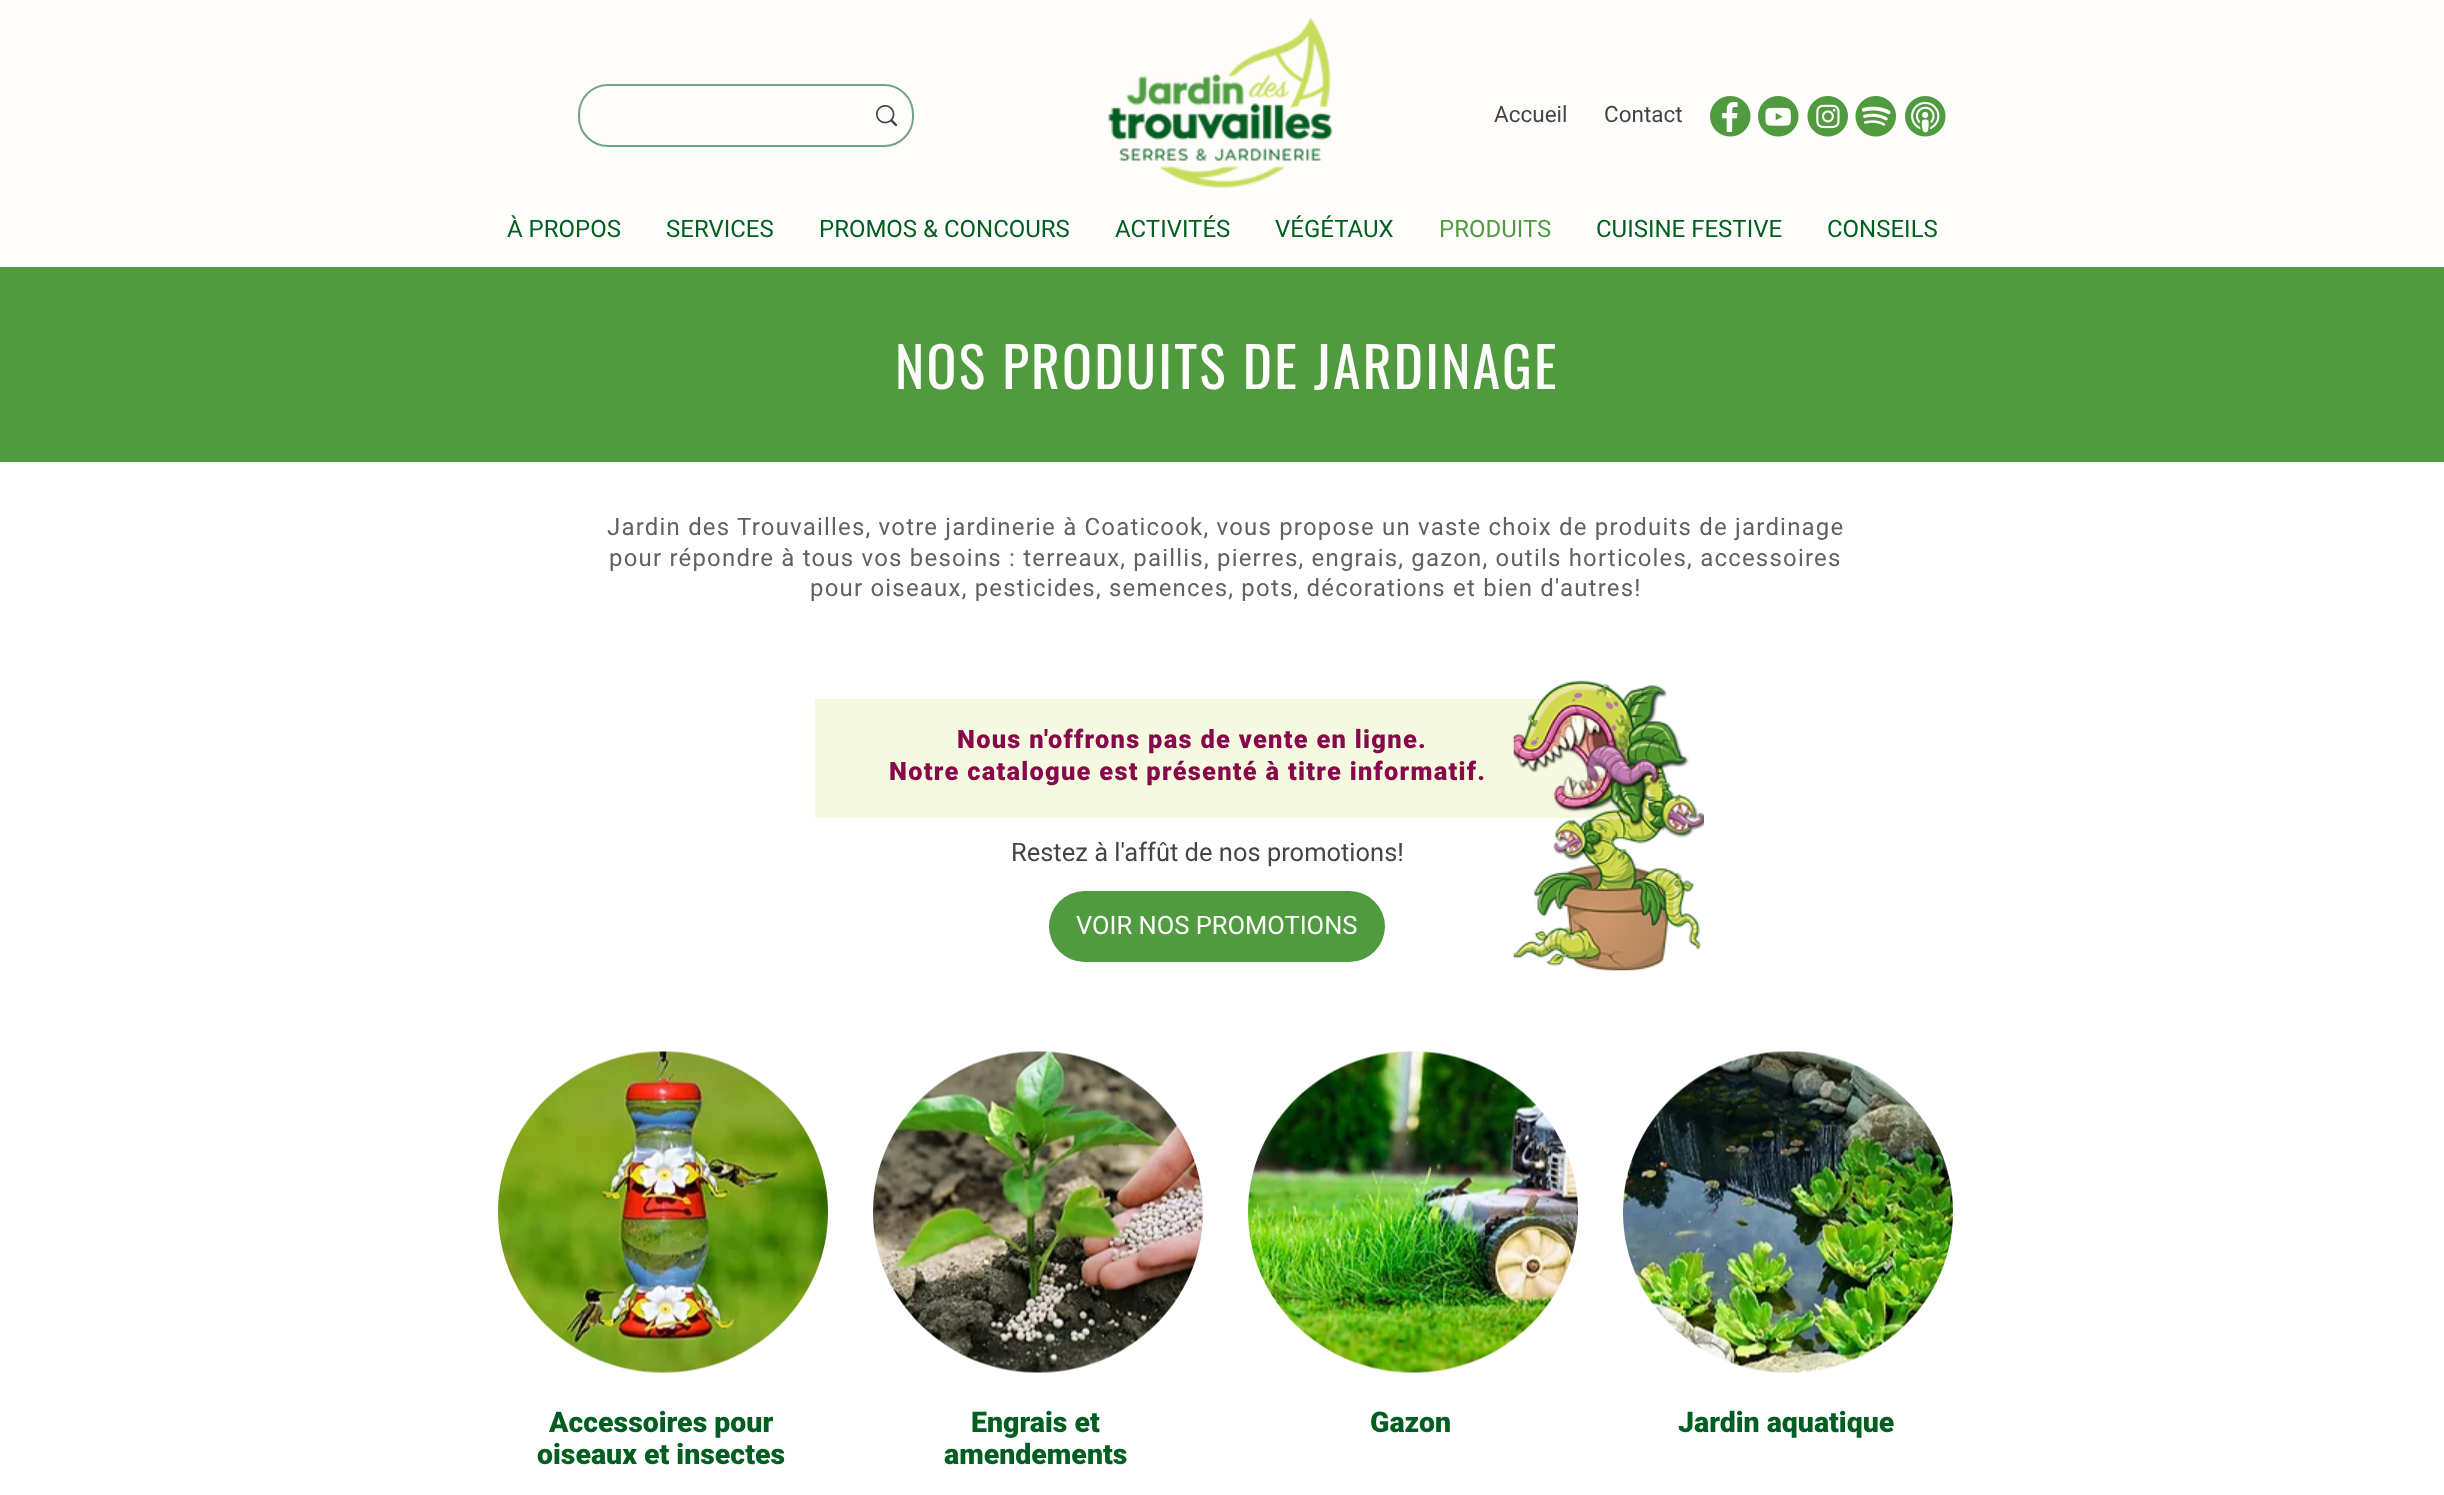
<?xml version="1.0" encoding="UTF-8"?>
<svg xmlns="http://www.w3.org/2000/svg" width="2444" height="1495">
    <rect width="100%" height="100%" fill="#FFFDFB"/>
    <rect x="579" y="85" width="334" height="61" rx="29" fill="none" stroke="#72A483" stroke-width="2"/>
    <image x="876" y="105" width="21" height="21" href="img_01.png"/>
    <image x="1108" y="17" width="225" height="171" href="img_02.png"/>
    <text x="1494" y="122" font-family="Roboto" font-size="22.5" fill="#444444">Accueil</text>
    <text x="1604" y="122" font-family="Roboto" font-size="22.5" fill="#444444">Contact</text>
    <image x="1710" y="96" width="41" height="41" href="img_03.png"/>
    <image x="1758" y="96" width="41" height="41" href="img_04.png"/>
    <image x="1807" y="96" width="41" height="41" href="img_05.png"/>
    <image x="1855" y="96" width="41" height="41" href="img_06.png"/>
    <image x="1905" y="96" width="41" height="41" href="img_07.png"/>
    <text x="507" y="237" font-family="Roboto" font-size="24" fill="#005E21">À PROPOS</text>
    <text x="666" y="237" font-family="Roboto" font-size="24" fill="#005E21">SERVICES</text>
    <text x="819" y="237" font-family="Roboto" font-size="24" fill="#005E21">PROMOS &amp; CONCOURS</text>
    <text x="1115" y="237" font-family="Roboto" font-size="24" fill="#005E21">ACTIVITÉS</text>
    <text x="1275" y="237" font-family="Roboto" font-size="24" fill="#005E21">VÉGÉTAUX</text>
    <text x="1439" y="237" font-family="Roboto" font-size="24" fill="#509B40">PRODUITS</text>
    <text x="1596" y="237" font-family="Roboto" font-size="24" fill="#005E21">CUISINE FESTIVE</text>
    <text x="1827" y="237" font-family="Roboto" font-size="24" fill="#005E21">CONSEILS</text>
    <rect x="0" y="267" width="2444" height="195" fill="#509B40"/>
    <text x="895" y="389" font-family="Oswald" font-size="55.5" letter-spacing="2.25" fill="#FFFDFB">NOS PRODUITS DE JARDINAGE</text>
    <rect x="0" y="462" width="2444" height="1033" fill="#FFFFFF"/>
    <text x="607" y="535" font-family="Roboto" font-size="24" letter-spacing="1.2" fill="#61615F">Jardin des Trouvailles, votre jardinerie à Coaticook, vous propose un vaste choix de produits de jardinage</text>
    <text x="609" y="566" font-family="Roboto" font-size="24" letter-spacing="1.2" fill="#61615F">pour répondre à tous vos besoins : terreaux, paillis, pierres, engrais, gazon, outils horticoles, accessoires</text>
    <text x="810" y="596" font-family="Roboto" font-size="24" letter-spacing="1.2" fill="#61615F">pour oiseaux, pesticides, semences, pots, décorations et bien d'autres!</text>
    <rect x="815" y="699" width="808" height="119" fill="#F5F9E0"/>
    <text x="957" y="748" font-family="Roboto" font-size="25.5" font-weight="900" letter-spacing="1.25" fill="#88094B">Nous n'offrons pas de vente en ligne.</text>
    <text x="889" y="780" font-family="Roboto" font-size="25.5" font-weight="900" letter-spacing="1.25" fill="#88094B">Notre catalogue est présenté à titre informatif.</text>
    <image x="1513" y="680" width="191" height="291" href="img_08.png"/>
    <text x="1011" y="861" font-family="Roboto" font-size="25.5" fill="#444444">Restez à l'affût de nos promotions!</text>
    <rect x="1049" y="891" width="336" height="71" rx="35.5" fill="#509B40"/>
    <text x="1076" y="934" font-family="Roboto" font-size="25.5" fill="#FFFDFB">VOIR NOS PROMOTIONS</text>
    <image x="498" y="1051" width="330" height="322" href="img_09.png"/>
    <text x="549" y="1432" font-family="Roboto" font-size="28.5" font-weight="900" fill="#005E21">Accessoires pour</text>
    <text x="537" y="1464" font-family="Roboto" font-size="28.5" font-weight="900" fill="#005E21">oiseaux et insectes</text>
    <image x="873" y="1051" width="330" height="322" href="img_10.png"/>
    <text x="971" y="1432" font-family="Roboto" font-size="28.5" font-weight="900" fill="#005E21">Engrais et</text>
    <text x="944" y="1464" font-family="Roboto" font-size="28.5" font-weight="900" fill="#005E21">amendements</text>
    <image x="1248" y="1051" width="330" height="322" href="img_11.png"/>
    <text x="1370" y="1432" font-family="Roboto" font-size="28.5" font-weight="900" fill="#005E21">Gazon</text>
    <image x="1623" y="1051" width="330" height="322" href="img_12.png"/>
    <text x="1678" y="1432" font-family="Roboto" font-size="28.5" font-weight="900" fill="#005E21">Jardin aquatique</text>
</svg>
